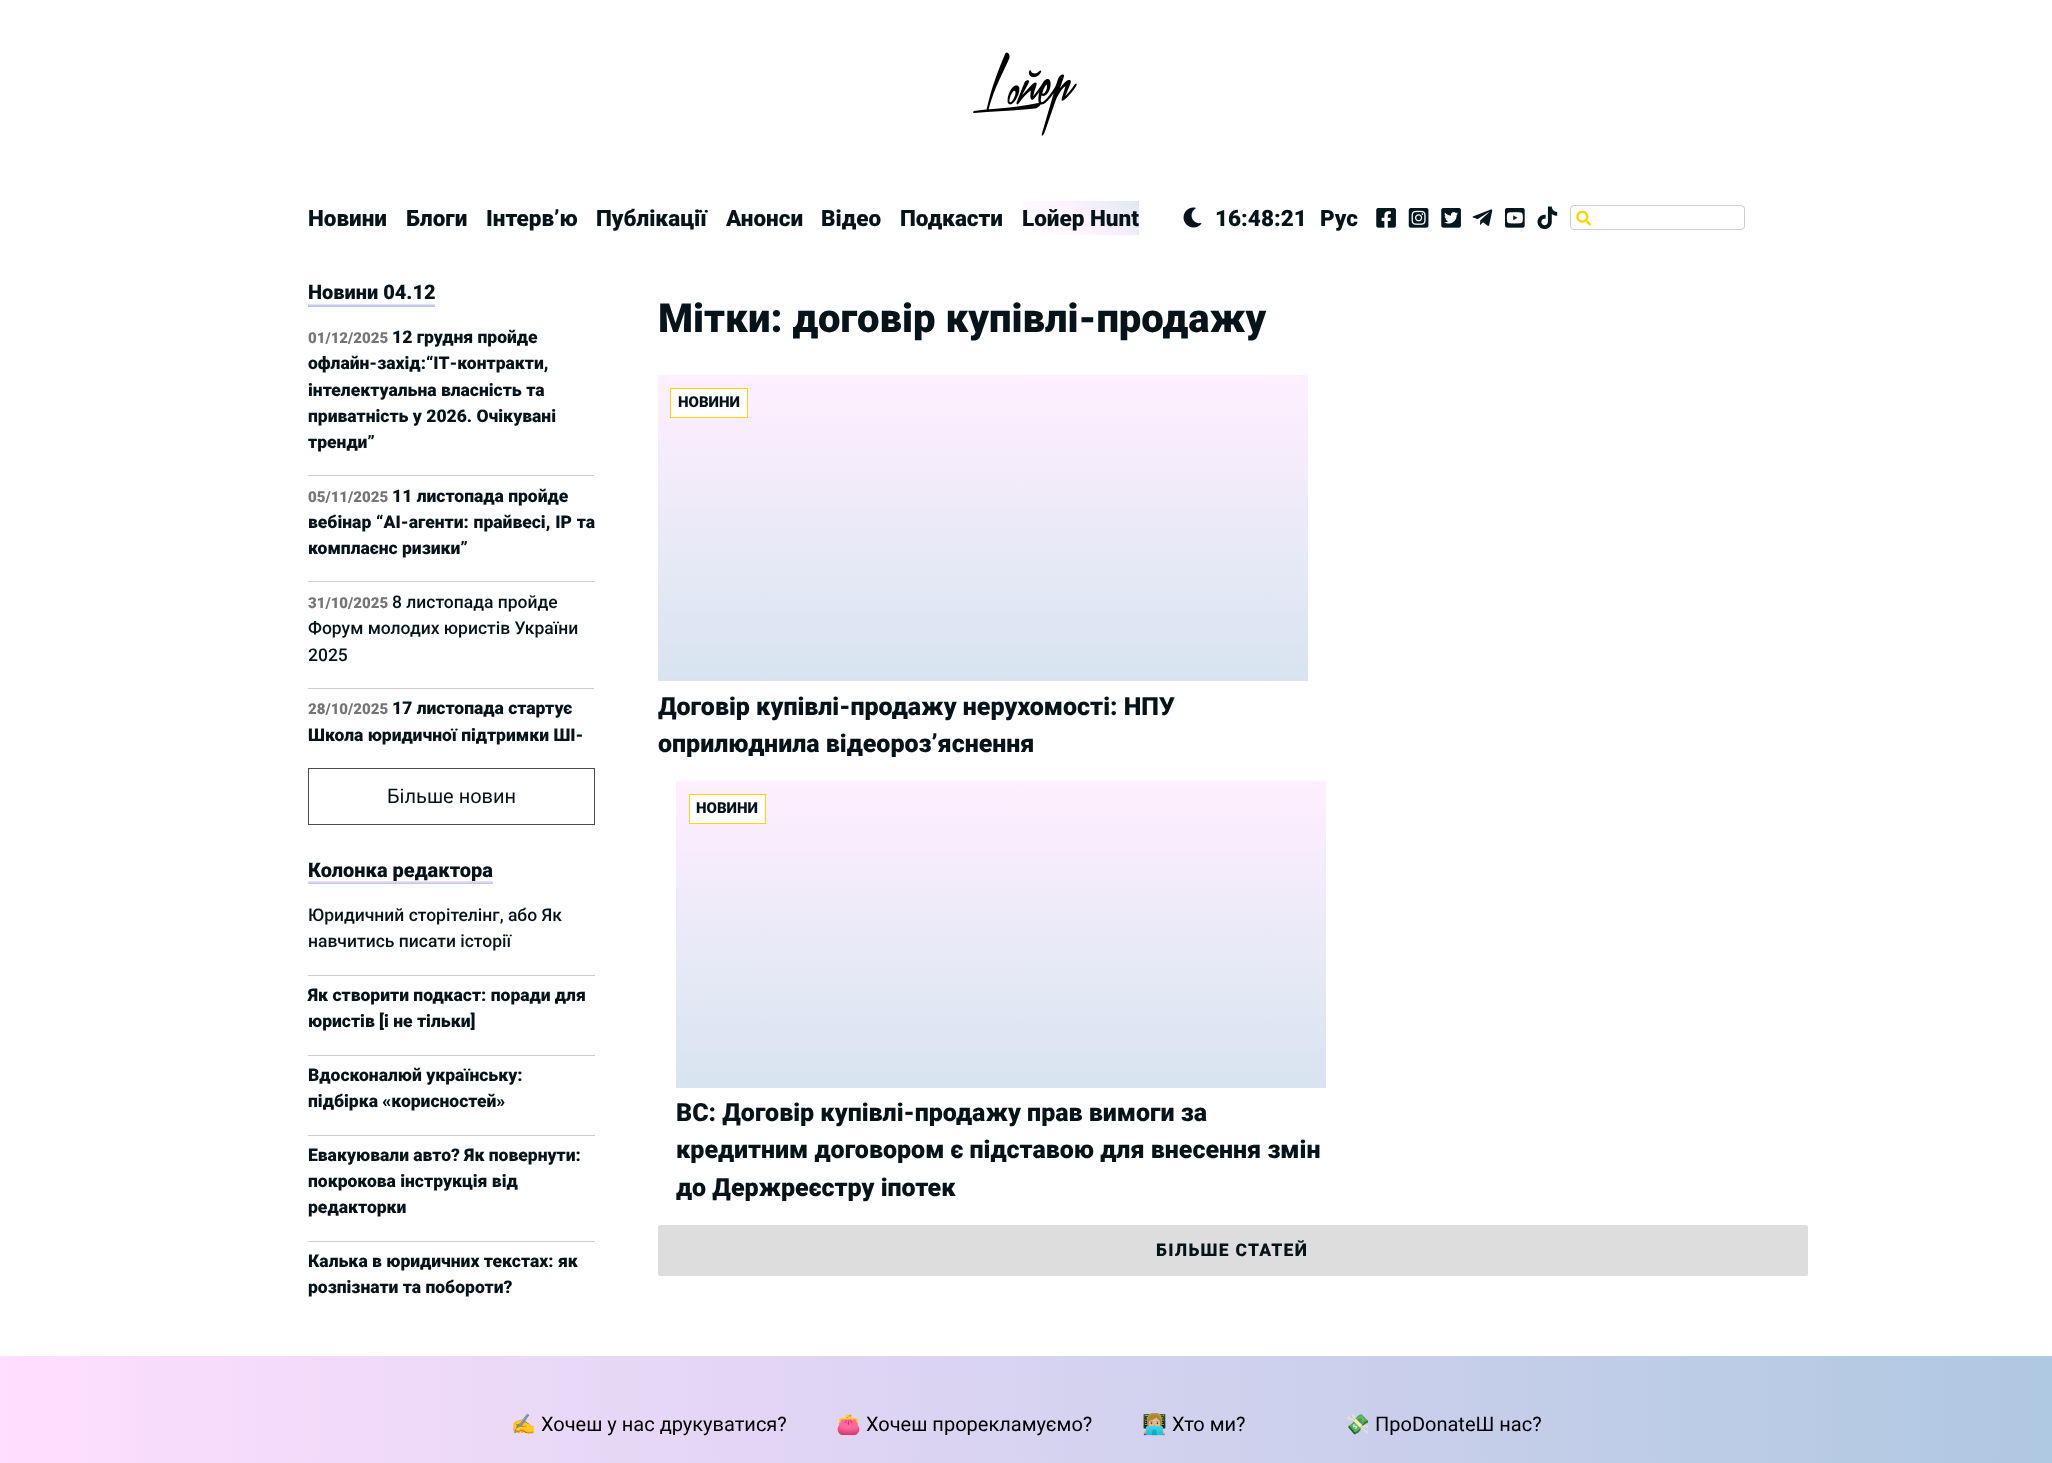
<?xml version="1.0" encoding="UTF-8"?>
<svg xmlns="http://www.w3.org/2000/svg" width="2052" height="1463">
    <defs>
        <linearGradient id="g1" gradientUnits="userSpaceOnUse" x1="1043" y1="256" x2="1118" y2="181"><stop offset="0" stop-color="#FFFFFF"/><stop offset="0.5" stop-color="#FFF2FF"/><stop offset="1" stop-color="#DFE9F3"/></linearGradient>
        <linearGradient id="g2" gradientUnits="userSpaceOnUse" x1="371" y1="304" x2="371" y2="306"><stop offset="0" stop-color="#FFDEFF"/><stop offset="1" stop-color="#AFC8E1"/></linearGradient>
        <linearGradient id="g3" gradientUnits="userSpaceOnUse" x1="400" y1="881" x2="400" y2="884"><stop offset="0" stop-color="#FFDEFF"/><stop offset="1" stop-color="#AFC8E1"/></linearGradient>
        <linearGradient id="g4" gradientUnits="userSpaceOnUse" x1="983" y1="375" x2="983" y2="681"><stop offset="0" stop-color="#FFEFFF"/><stop offset="1" stop-color="#D7E4F0"/></linearGradient>
        <linearGradient id="g5" gradientUnits="userSpaceOnUse" x1="1001" y1="781" x2="1001" y2="1088"><stop offset="0" stop-color="#FFEFFF"/><stop offset="1" stop-color="#D7E4F0"/></linearGradient>
        <linearGradient id="g6" gradientUnits="userSpaceOnUse" x1="0" y1="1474" x2="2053" y2="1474"><stop offset="0" stop-color="#FFDEFF"/><stop offset="1" stop-color="#AFC8E1"/></linearGradient>
    </defs>
    <rect width="100%" height="100%" fill="#FFFFFF"/>
    <image x="973" y="52" width="104" height="84" href="img_01.png"/>
    <text x="308" y="226" font-family="Roboto" font-size="22.5" font-weight="900" fill="#061319">Новини</text>
    <text x="406" y="226" font-family="Roboto" font-size="22.5" font-weight="900" fill="#061319">Блоги</text>
    <text x="486" y="226" font-family="Roboto" font-size="22.5" font-weight="900" fill="#061319">Інтерв’ю</text>
    <text x="596" y="226" font-family="Roboto" font-size="22.5" font-weight="900" fill="#061319">Публікації</text>
    <text x="726" y="226" font-family="Roboto" font-size="22.5" font-weight="900" fill="#061319">Анонси</text>
    <text x="821" y="226" font-family="Roboto" font-size="22.5" font-weight="900" fill="#061319">Відео</text>
    <text x="900" y="226" font-family="Roboto" font-size="22.5" font-weight="900" fill="#061319">Подкасти</text>
    <rect x="1023" y="201" width="116" height="34" fill="url(#g1)"/>
    <text x="1022" y="226" font-family="Roboto" font-size="22.5" font-weight="900" fill="#061319">Lойер Hunt</text>
    <image x="1183" y="207" width="19" height="21" href="img_02.png"/>
    <text x="1215" y="226" font-family="Roboto" font-size="22.5" font-weight="900" fill="#061319">16:48:21</text>
    <text x="1320" y="226" font-family="Roboto" font-size="22.5" font-weight="900" fill="#061319">Рус</text>
    <image x="1376" y="208" width="20" height="20" href="img_03.png"/>
    <image x="1408" y="208" width="21" height="20" href="img_04.png"/>
    <image x="1441" y="208" width="20" height="20" href="img_05.png"/>
    <image x="1472" y="209" width="21" height="17" href="img_06.png"/>
    <image x="1505" y="208" width="20" height="20" href="img_07.png"/>
    <image x="1537" y="206" width="21" height="24" href="img_08.png"/>
    <rect x="1570.5" y="205.5" width="174" height="24" rx="3.5" fill="none" stroke="#CCCCCC"/>
    <image x="1576" y="210" width="16" height="16" href="img_09.png"/>
    <text x="308" y="299" font-family="Roboto" font-size="20" font-weight="900" fill="#061319">Новини 04.12</text>
    <rect x="308" y="304" width="127" height="3" fill="url(#g2)"/>
    <text x="308" y="343" font-family="Roboto" font-size="15" font-weight="900" fill="#767678">01/12/2025</text>
    <text x="392" y="343" font-family="Roboto" font-size="17.5" font-weight="900" fill="#061319">12 грудня пройде</text>
    <text font-family="Roboto" font-size="17.5" font-weight="900" fill="#061319">
        <tspan x="308" y="369">офлайн-захід:“ІТ-контракти,</tspan>
        <tspan x="308" y="396">інтелектуальна власність та</tspan>
        <tspan x="308" y="422">приватність у 2026. Очікувані</tspan>
        <tspan x="308" y="448">тренди”</tspan>
    </text>
    <rect x="308" y="475" width="286" height="1" fill="#CCCCCC"/>
    <text x="308" y="502" font-family="Roboto" font-size="15" font-weight="900" fill="#767678">05/11/2025</text>
    <text x="392" y="502" font-family="Roboto" font-size="17.5" font-weight="900" fill="#061319">11 листопада пройде</text>
    <text font-family="Roboto" font-size="17.5" font-weight="900" fill="#061319">
        <tspan x="308" y="528" word-spacing="0.5">вебінар “AI-агенти: прайвесі, IP та</tspan>
        <tspan x="308" y="554">комплаєнс ризики”</tspan>
    </text>
    <rect x="308" y="581" width="286" height="1" fill="#CCCCCC"/>
    <text x="308" y="608" font-family="Roboto" font-size="15" font-weight="900" fill="#767678">31/10/2025</text>
    <text x="392" y="608" font-family="Roboto" font-size="17.5" font-weight="500" fill="#061319">8 листопада пройде</text>
    <text font-family="Roboto" font-size="17.5" font-weight="500" fill="#061319">
        <tspan x="308" y="634">Форум молодих юристів України</tspan>
        <tspan x="308" y="661">2025</tspan>
    </text>
    <rect x="308" y="688" width="286" height="1" fill="#CCCCCC"/>
    <text x="308" y="714" font-family="Roboto" font-size="15" font-weight="900" fill="#767678">28/10/2025</text>
    <text x="392" y="714" font-family="Roboto" font-size="17.5" font-weight="900" fill="#061319">17 листопада стартує</text>
    <text x="308" y="741" font-family="Roboto" font-size="17.5" font-weight="900" fill="#061319">Школа юридичної підтримки ШІ-</text>
    <rect x="308.5" y="768.5" width="286" height="56" fill="none" stroke="#4D4D4D"/>
    <text x="387" y="803" font-family="Roboto" font-size="20" fill="#061319">Більше новин</text>
    <rect x="308" y="881" width="185" height="3" fill="url(#g3)"/>
    <text x="308" y="877" font-family="Roboto" font-size="20" font-weight="900" fill="#061319">Колонка редактора</text>
    <text font-family="Roboto" font-size="17.5" font-weight="500" fill="#061319">
        <tspan x="308" y="921">Юридичний сторітелінг, або Як</tspan>
        <tspan x="308" y="947">навчитись писати історії</tspan>
    </text>
    <rect x="308" y="975" width="287" height="1" fill="#CCCCCC"/>
    <text font-family="Roboto" font-size="17.5" font-weight="900" fill="#061319">
        <tspan x="308" y="1001">Як створити подкаст: поради для</tspan>
        <tspan x="308" y="1027">юристів [і не тільки]</tspan>
    </text>
    <rect x="308" y="1055" width="287" height="1" fill="#CCCCCC"/>
    <text font-family="Roboto" font-size="17.5" font-weight="900" fill="#061319">
        <tspan x="308" y="1081">Вдосконалюй українську:</tspan>
        <tspan x="308" y="1107">підбірка «корисностей»</tspan>
    </text>
    <rect x="308" y="1135" width="287" height="1" fill="#CCCCCC"/>
    <text font-family="Roboto" font-size="17.5" font-weight="900" fill="#061319">
        <tspan x="308" y="1161">Евакуювали авто? Як повернути:</tspan>
        <tspan x="308" y="1187">покрокова інструкція від</tspan>
        <tspan x="308" y="1213">редакторки</tspan>
    </text>
    <rect x="308" y="1241" width="287" height="1" fill="#CCCCCC"/>
    <text font-family="Roboto" font-size="17.5" font-weight="900" fill="#061319">
        <tspan x="308" y="1267">Калька в юридичних текстах: як</tspan>
        <tspan x="308" y="1293">розпізнати та побороти?</tspan>
    </text>
    <text x="658" y="332" font-family="Roboto" font-size="40" font-weight="900" fill="#061319">Мітки: договір купівлі-продажу</text>
    <rect x="658" y="375" width="650" height="306" fill="url(#g4)"/>
    <rect x="670.5" y="388.5" width="77" height="29" fill="#FFFFFF" stroke="#FFD500"/>
    <text x="678" y="407" font-family="Roboto" font-size="15" font-weight="900" fill="#061319">НОВИНИ</text>
    <text font-family="Roboto" font-size="25" font-weight="900" fill="#061319">
        <tspan x="658" y="715">Договір купівлі-продажу нерухомості: НПУ</tspan>
        <tspan x="658" y="752">оприлюднила відеороз’яснення</tspan>
    </text>
    <rect x="676" y="781" width="650" height="307" fill="url(#g5)"/>
    <rect x="689.5" y="794.5" width="76" height="29" fill="#FFFFFF" stroke="#FFD500"/>
    <text x="696" y="813" font-family="Roboto" font-size="15" font-weight="900" fill="#061319">НОВИНИ</text>
    <text font-family="Roboto" font-size="25" font-weight="900" fill="#061319">
        <tspan x="676" y="1121">ВС: Договір купівлі-продажу прав вимоги за</tspan>
        <tspan x="676" y="1158">кредитним договором є підставою для внесення змін</tspan>
        <tspan x="676" y="1196">до Держреєстру іпотек</tspan>
    </text>
    <rect x="658" y="1225" width="1150" height="51" rx="2.5" fill="#DDDDDD"/>
    <text x="1156" y="1256" font-family="Roboto" font-size="17.5" font-weight="900" letter-spacing="1.25" fill="#061319">БІЛЬШЕ СТАТЕЙ</text>
    <rect x="0" y="1356" width="2052" height="107" fill="url(#g6)"/>
    <text x="511" y="1431" font-family="Noto Color Emoji" font-size="20" fill="#000000">✍</text>
    <text x="541" y="1431" font-family="Roboto" font-size="20" fill="#000000">Хочеш у нас друкуватися?</text>
    <text x="836" y="1431" font-family="Noto Color Emoji" font-size="20" fill="#000000">👛</text>
    <text x="866" y="1431" font-family="Roboto" font-size="20" fill="#000000">Хочеш прорекламуємо?</text>
    <text x="1142" y="1431" font-family="Noto Color Emoji" font-size="20" fill="#000000">👩🏼‍💻</text>
    <text x="1172" y="1431" font-family="Roboto" font-size="20" fill="#000000">Хто ми?</text>
    <text x="1345" y="1431" font-family="Noto Color Emoji" font-size="20" fill="#000000">💸</text>
    <text x="1375" y="1431" font-family="Roboto" font-size="20" fill="#000000">ПроDonateШ нас?</text>
</svg>
